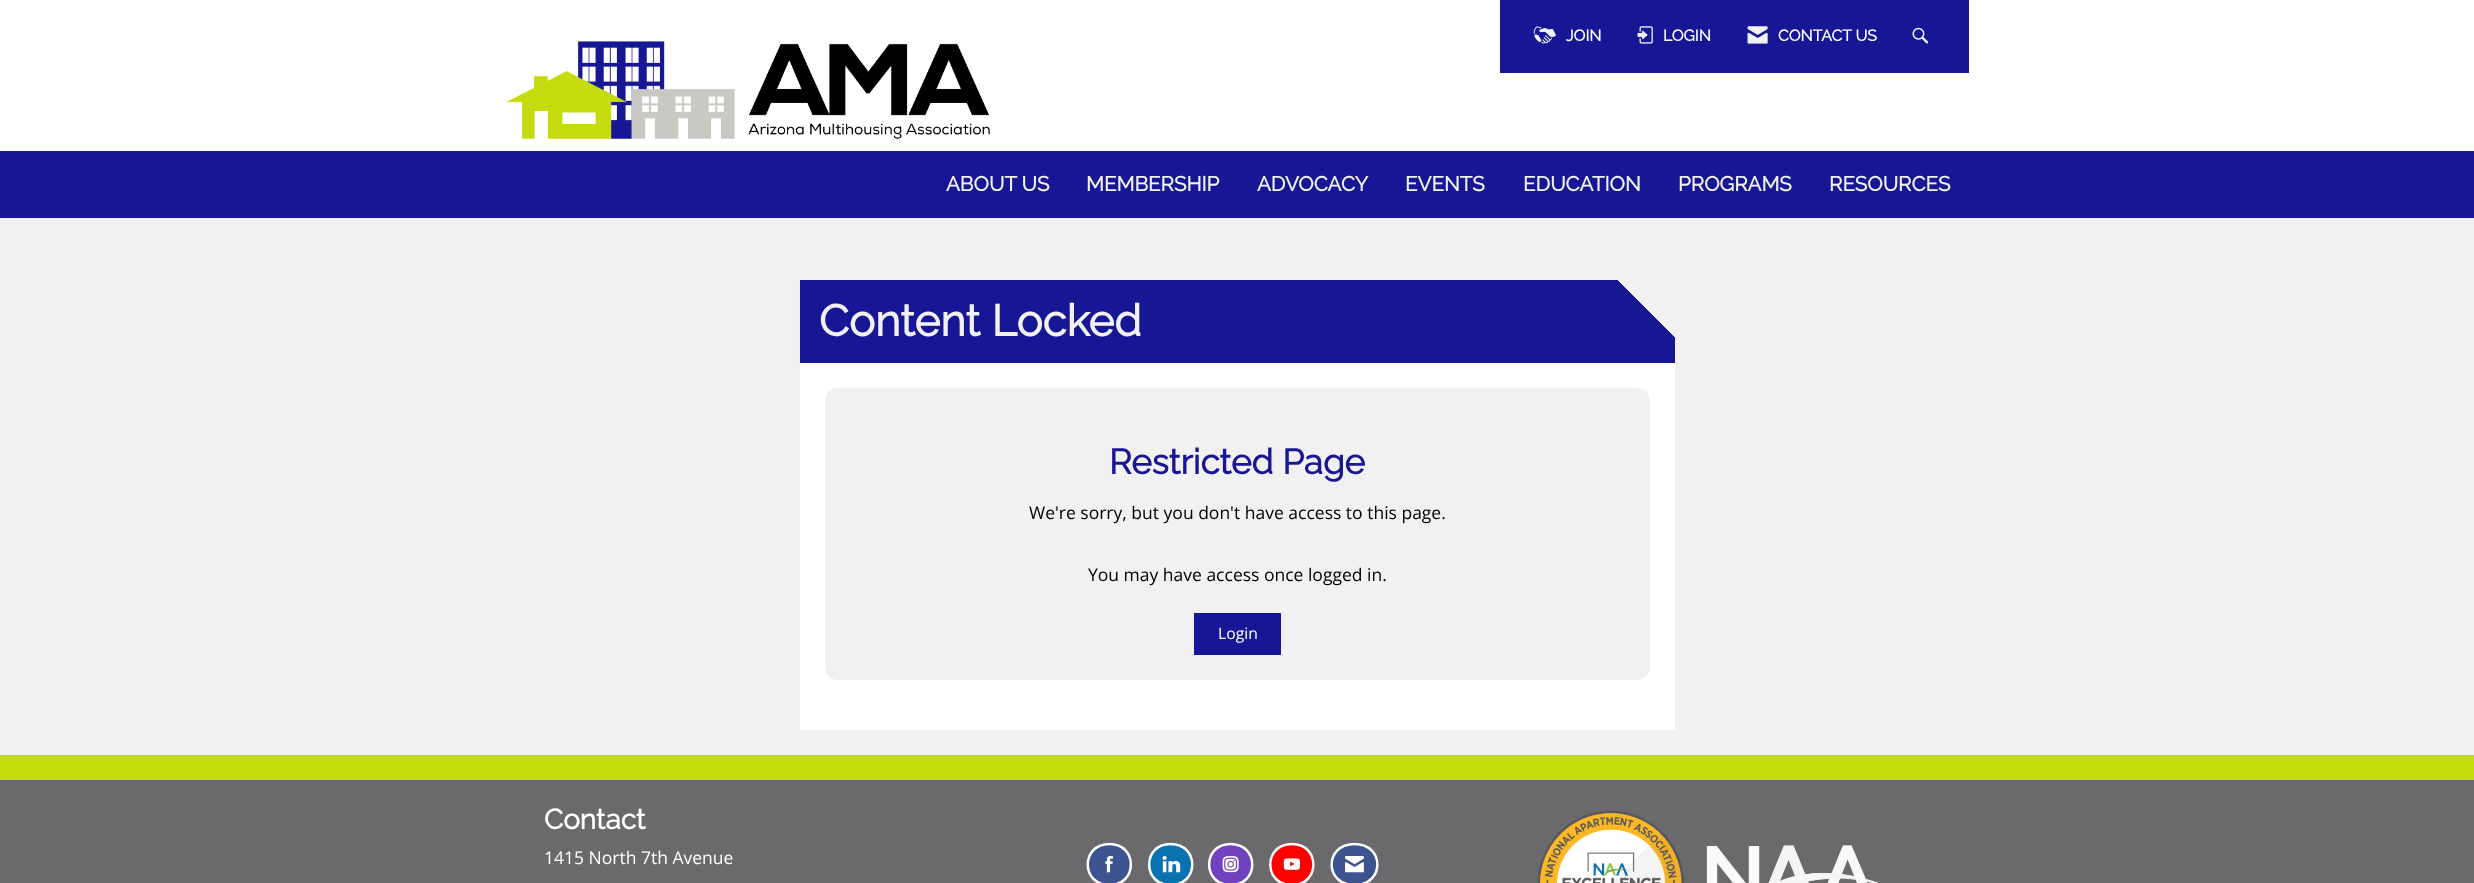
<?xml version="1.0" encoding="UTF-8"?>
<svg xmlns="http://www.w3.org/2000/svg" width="2474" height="883">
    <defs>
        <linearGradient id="g1" gradientUnits="userSpaceOnUse" x1="1477" y1="82" x2="998" y2="561"><stop offset="0.06" stop-color="#F1F1F1"/><stop offset="0.06" stop-color="#171796"/><stop offset="1" stop-color="#171796"/></linearGradient>
    </defs>
    <rect width="100%" height="100%" fill="#F1F1F1"/>
    <rect x="0" y="0" width="2474" height="151" fill="#FFFFFF"/>
    <rect x="1500" y="0" width="469" height="73" fill="#171796"/>
    <image x="1533" y="26" width="23" height="18" href="img_01.png"/>
    <text x="1566" y="41" font-family="Raleway" font-size="15.75" font-weight="700" fill="#FFFFFF">JOIN</text>
    <image x="1637" y="26" width="16" height="18" href="img_02.png"/>
    <text x="1663" y="41" font-family="Raleway" font-size="15.75" font-weight="700" fill="#FFFFFF">LOGIN</text>
    <image x="1747" y="26" width="21" height="18" href="img_03.png"/>
    <text x="1778" y="41" font-family="Raleway" font-size="15.75" font-weight="700" fill="#FFFFFF">CONTACT US</text>
    <image x="1912" y="27" width="17" height="17" href="img_04.png"/>
    <image x="507" y="41" width="483" height="98" href="img_05.png"/>
    <rect x="0" y="151" width="2474" height="67" fill="#171796"/>
    <text x="946" y="191" font-family="Raleway" font-size="20.5" font-weight="700" fill="#F1F1F1">ABOUT US</text>
    <text x="1086" y="191" font-family="Raleway" font-size="20.5" font-weight="700" fill="#F1F1F1">MEMBERSHIP</text>
    <text x="1257" y="191" font-family="Raleway" font-size="20.5" font-weight="700" fill="#F1F1F1">ADVOCACY</text>
    <text x="1405" y="191" font-family="Raleway" font-size="20.5" font-weight="700" fill="#F1F1F1">EVENTS</text>
    <text x="1523" y="191" font-family="Raleway" font-size="20.5" font-weight="700" fill="#F1F1F1">EDUCATION</text>
    <text x="1678" y="191" font-family="Raleway" font-size="20.5" font-weight="700" fill="#F1F1F1">PROGRAMS</text>
    <text x="1829" y="191" font-family="Raleway" font-size="20.5" font-weight="700" fill="#F1F1F1">RESOURCES</text>
    <rect x="800" y="280" width="875" height="83" fill="url(#g1)"/>
    <text x="819" y="336" font-family="Raleway" font-size="43.75" font-weight="700" fill="#F1F1F1">Content Locked</text>
    <rect x="800" y="363" width="875" height="367" fill="#FFFFFF"/>
    <rect x="825" y="388" width="825" height="292" rx="13" fill="#F1F1F1"/>
    <text x="1109" y="474" font-family="Raleway" font-size="35" font-weight="700" fill="#171796">Restricted Page</text>
    <text x="1029" y="519" font-family="Open Sans" font-size="17.5" fill="#000000">We're sorry, but you don't have access to this page.</text>
    <text x="1088" y="581" font-family="Open Sans" font-size="17.5" fill="#000000">You may have access once logged in.</text>
    <rect x="1194" y="613" width="87" height="42" fill="#171796"/>
    <text x="1218" y="639" font-family="Open Sans" font-size="15.75" fill="#FFFFFF">Login</text>
    <rect x="0" y="755" width="2474" height="25" fill="#C4DB0C"/>
    <rect x="0" y="780" width="2474" height="103" fill="#6A6A6C"/>
    <text x="544" y="829" font-family="Raleway" font-size="28" font-weight="700" fill="#FFFFFF">Contact</text>
    <text x="544" y="864" font-family="Open Sans" font-size="17.5" fill="#FFFFFF">1415 North 7th Avenue</text>
    <ellipse cx="1109.5" cy="864.5" rx="23" ry="22" fill="#3E5491"/>
    <path d="M 1109.5 844 C 1138 844 1138 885 1109.5 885 C 1080.5 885 1080.5 844 1109.5 844 Z" fill="none" stroke="#FFFFFF" stroke-width="2.5"/>
    <image x="1105" y="856" width="9" height="17" href="img_06.png"/>
    <ellipse cx="1170.5" cy="864.5" rx="23" ry="22" fill="#0972B1"/>
    <path d="M 1170.5 844 C 1199.5 844 1199.5 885 1170.5 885 C 1142 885 1142 844 1170.5 844 Z" fill="none" stroke="#FFFFFF" stroke-width="2.5"/>
    <image x="1162" y="856" width="19" height="17" href="img_07.png"/>
    <ellipse cx="1230.5" cy="864.5" rx="23" ry="22" fill="#7042C0"/>
    <path d="M 1230.5 844 C 1259.5 844 1259.5 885 1230.5 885 C 1202 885 1202 844 1230.5 844 Z" fill="none" stroke="#FFFFFF" stroke-width="2.5"/>
    <image x="1222" y="856" width="17" height="17" href="img_08.png"/>
    <ellipse cx="1292" cy="864.5" rx="23" ry="22" fill="#FF0000"/>
    <path d="M 1292 844 C 1320.5 844 1320.5 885 1292 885 C 1263 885 1263 844 1292 844 Z" fill="none" stroke="#FFFFFF" stroke-width="2.5"/>
    <image x="1283" y="858" width="17" height="12" href="img_09.png"/>
    <ellipse cx="1354.5" cy="864.5" rx="24.5" ry="22" fill="#3E5491"/>
    <path d="M 1354.5 844 C 1385 844 1385 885 1354.5 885 C 1324 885 1324 844 1354.5 844 Z" fill="none" stroke="#FFFFFF" stroke-width="2.5"/>
    <image x="1345" y="856" width="19" height="17" href="img_10.png"/>
    <image x="1537" y="810" width="342" height="73" href="img_11.png"/>
</svg>
